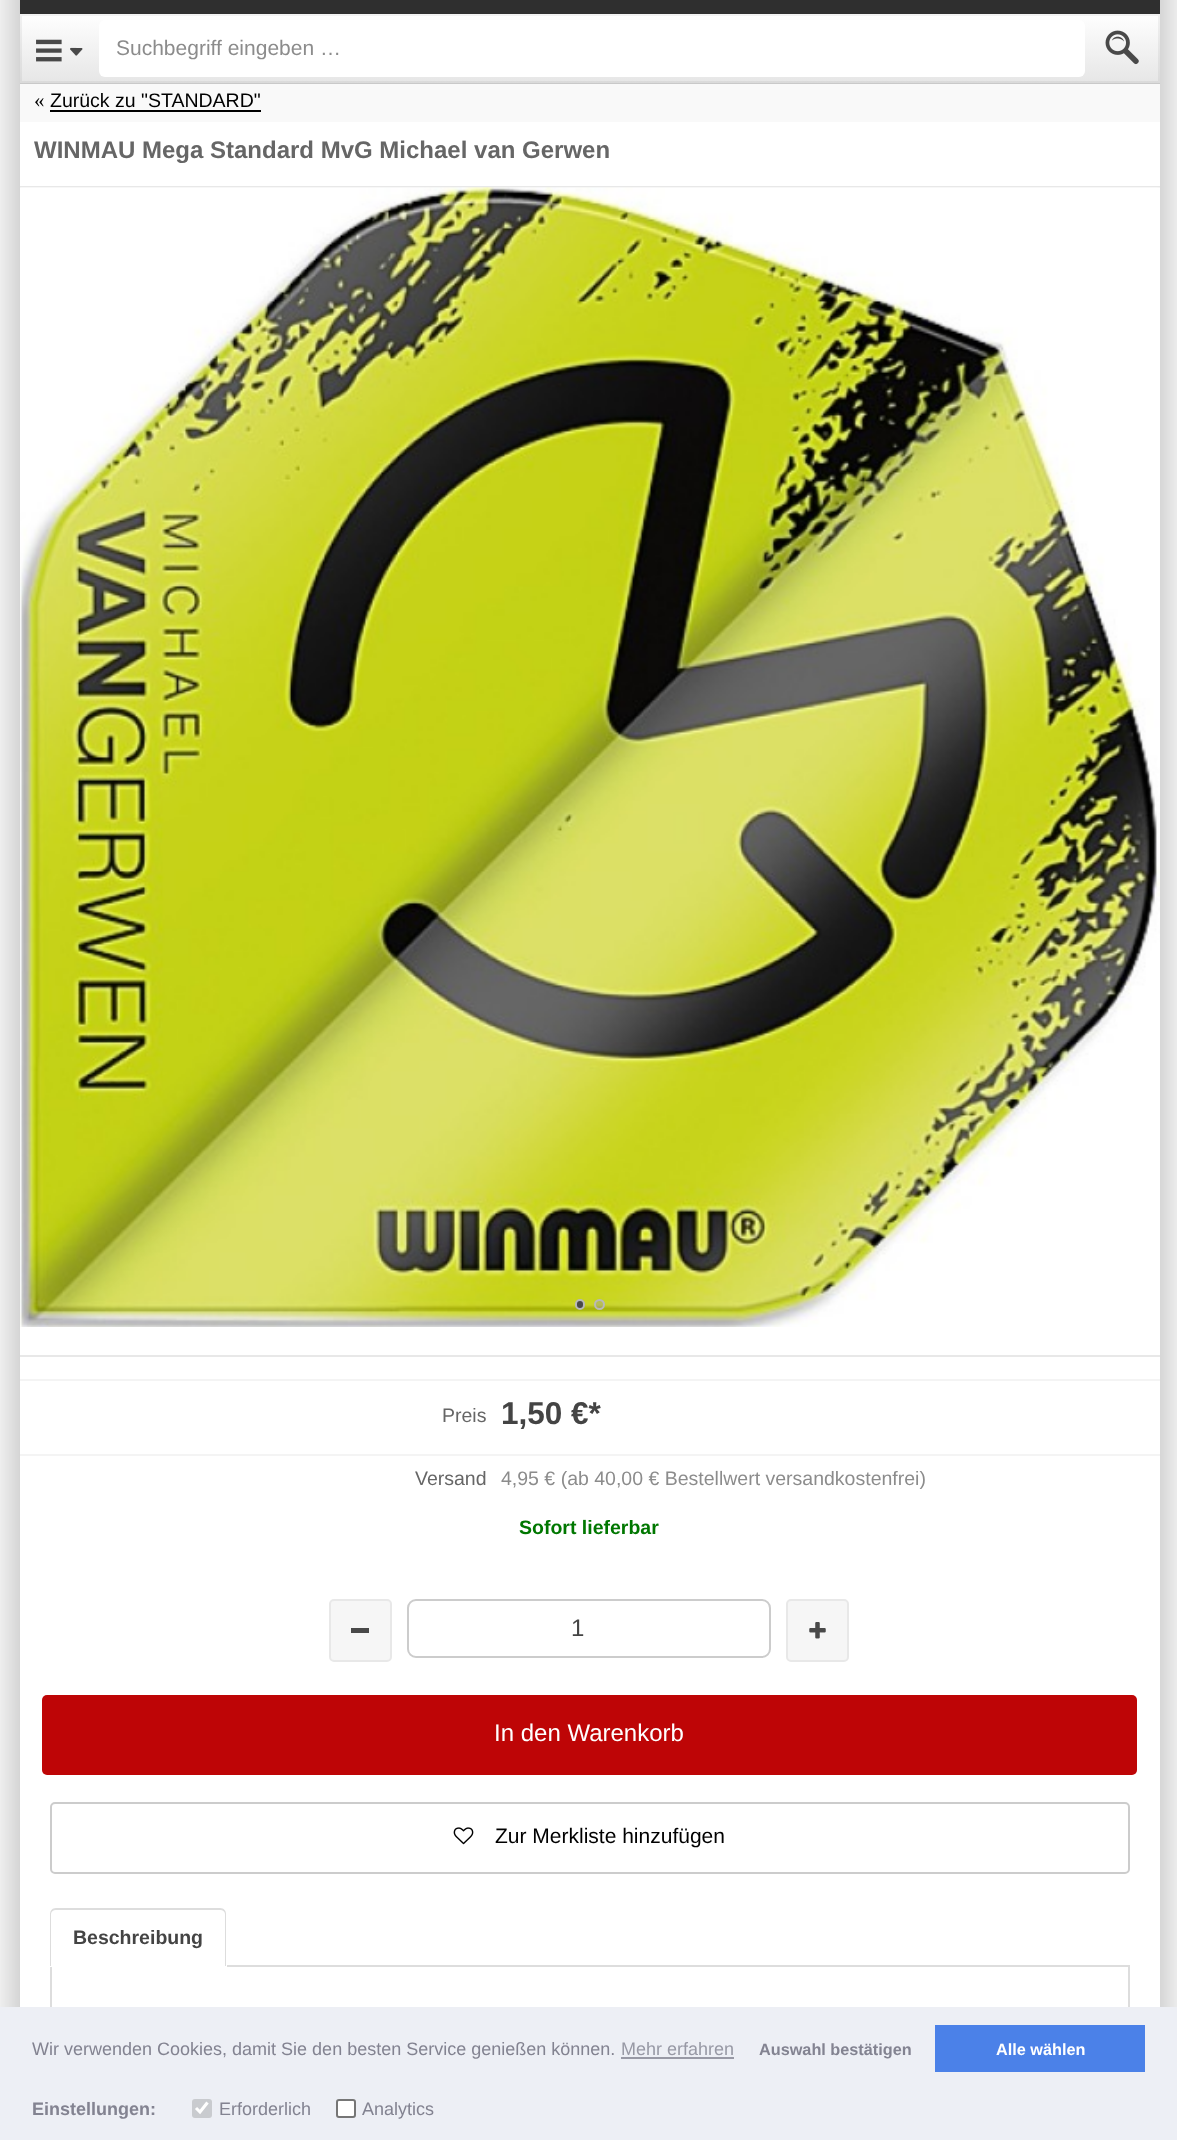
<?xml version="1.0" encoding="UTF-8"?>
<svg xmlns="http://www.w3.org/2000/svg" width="1177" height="2140">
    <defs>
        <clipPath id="clip1"><path d="M 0 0 H 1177 V 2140 H 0 Z M 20 -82 H 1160 V 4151 H 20 Z" clip-rule="evenodd"/></clipPath>
        <filter id="blur1" x="-50%" y="-200%" width="200%" height="500%"><feGaussianBlur stdDeviation="19"/></filter>
        <linearGradient id="g1" gradientUnits="userSpaceOnUse" x1="590" y1="13" x2="590" y2="83"><stop offset="0" stop-color="#FFFFFF"/><stop offset="1" stop-color="#E6E6E6"/></linearGradient>
    </defs>
    <rect width="100%" height="100%" fill="#FFFFFF"/>
    <g clip-path="url(#clip1)">
        <rect x="12" y="-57" width="1155" height="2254" fill="#000000" fill-opacity="0.25" filter="url(#blur1)"/>
    </g>
    <rect x="20" y="83" width="1140" height="1" fill="#C9C9C9"/>
    <rect x="20" y="0" width="1140" height="14" fill="#2F2F2F"/>
    <rect x="20" y="14" width="1140" height="69" fill="url(#g1)"/>
    <rect x="21" y="15" width="1138" height="67" fill="none" stroke="#000000" stroke-opacity="0.05" stroke-width="2"/>
    <image x="36" y="39" width="47" height="23" href="img_01.png"/>
    <rect x="99" y="20" width="986" height="57" rx="6" fill="#FFFFFF"/>
    <text x="116" y="55" font-family="Liberation Sans" font-size="21" fill="#8C8C8C">Suchbegriff eingeben …</text>
    <image x="1105" y="30" width="34" height="35" href="img_02.png"/>
    <rect x="20" y="84" width="1140" height="38" fill="#F9F9F9"/>
    <text x="34" y="107" font-family="Liberation Serif" font-size="21" fill="#000000">«</text>
    <text x="50" y="107" font-family="Liberation Sans" font-size="19.5" fill="#000000">Zurück zu "STANDARD"</text>
    <rect x="50" y="110" width="211" height="2" fill="#000000"/>
    <text x="34" y="158" font-family="Liberation Sans" font-size="24" font-weight="700" fill="#666666">WINMAU Mega Standard MvG Michael van Gerwen</text>
    <rect x="1159" y="188" width="1" height="1167" fill="#FFFFFF"/>
    <rect x="20" y="186" width="1140" height="2" fill="#E8E8E8"/>
    <rect x="20" y="1355" width="1140" height="2" fill="#E8E8E8"/>
    <image x="20" y="187" width="1140" height="1140" href="img_03.png"/>
    <rect x="576" y="1300" width="8" height="9" rx="4" fill="#494949" stroke="#B9B9B9" stroke-width="2"/>
    <circle cx="599.5" cy="1304.5" r="4.5" fill="#9B9C9E" fill-opacity="0.4" stroke="#B9B9B9" stroke-width="2"/>
    <rect x="20" y="1379" width="1140" height="2" fill="#F4F4F4"/>
    <rect x="20" y="1454" width="1140" height="2" fill="#F4F4F4"/>
    <text x="442" y="1422" font-family="Liberation Sans" font-size="19.5" fill="#666666">Preis</text>
    <text x="501" y="1424" font-family="Liberation Sans" font-size="31.5" font-weight="700" fill="#444444">1,50 €*</text>
    <text x="415" y="1485" font-family="Liberation Sans" font-size="19.5" fill="#666666">Versand</text>
    <text x="501" y="1485" font-family="Liberation Sans" font-size="19.5" fill="#8C8C8C">4,95 € (ab 40,00 € Bestellwert versandkostenfrei)</text>
    <text x="519" y="1534" font-family="Liberation Sans" font-size="19.5" font-weight="700" fill="#007700">Sofort lieferbar</text>
    <rect x="330" y="1600" width="61" height="61" rx="4" fill="#F6F6F6" stroke="#E8E8E8" stroke-width="2"/>
    <rect x="351" y="1628" width="18" height="5" fill="#494949"/>
    <rect x="408" y="1600" width="362" height="57" rx="8" fill="none" stroke="#CCCCCC" stroke-width="2"/>
    <text x="571" y="1636" font-family="Liberation Sans" font-size="24" fill="#444444">1</text>
    <rect x="787" y="1600" width="61" height="61" rx="4" fill="#F6F6F6" stroke="#E8E8E8" stroke-width="2"/>
    <image x="809" y="1622" width="17" height="17" href="img_04.png"/>
    <rect x="42" y="1695" width="1095" height="80" rx="5" fill="#BE0506"/>
    <text x="494" y="1741" font-family="Liberation Sans" font-size="24" fill="#FFFFFF">In den Warenkorb</text>
    <rect x="51" y="1803" width="1078" height="70" rx="4" fill="none" stroke="#CCCCCC" stroke-width="2"/>
    <image x="453" y="1827" width="21" height="18" href="img_05.png"/>
    <text x="495" y="1843" font-family="Liberation Sans" font-size="21" fill="#000000">Zur Merkliste hinzufügen</text>
    <rect x="227" y="1965" width="903" height="2" fill="#DDDDDD"/>
    <path d="M 56 1908 H 220 C 224 1908 226 1911 226 1914 V 1966 H 50 V 1914 C 50 1911 52 1908 56 1908 Z M 56 1910 H 220 C 223 1910 225 1912 225 1914 V 1966 H 51 V 1914 C 51 1912 53 1910 56 1910 Z" fill="#DDDDDD" fill-rule="evenodd"/>
    <text x="73" y="1944" font-family="Liberation Sans" font-size="19.5" font-weight="700" fill="#444444">Beschreibung</text>
    <rect x="1128" y="1967" width="2" height="40" fill="#DDDDDD"/>
    <rect x="50" y="1967" width="2" height="40" fill="#DDDDDD"/>
    <rect x="0" y="2007" width="1177" height="133" fill="#EDEFF5"/>
    <text x="32" y="2055" font-family="Liberation Sans" font-size="18" fill="#838391">Wir verwenden Cookies, damit Sie den besten Service genießen können.</text>
    <text x="621" y="2055" font-family="Liberation Sans" font-size="18" fill="#9899A5">Mehr erfahren</text>
    <rect x="621" y="2057" width="113" height="2" fill="#9899A5"/>
    <text x="759" y="2055" font-family="Liberation Sans" font-size="16.25" font-weight="700" fill="#838391">Auswahl bestätigen</text>
    <rect x="935" y="2025" width="210" height="47" fill="#4B81E8"/>
    <text x="996" y="2055" font-family="Liberation Sans" font-size="16.25" font-weight="700" fill="#FFFFFF">Alle wählen</text>
    <text x="32" y="2115" font-family="Liberation Sans" font-size="18" font-weight="700" fill="#838391">Einstellungen:</text>
    <rect x="192" y="2099" width="20" height="19" rx="3" fill="#C9CBCF"/>
    <path d="M 196 2108 L 200 2112 L 207.5 2102.5" fill="none" stroke="#FFFFFF" stroke-width="3.1"/>
    <text x="219" y="2115" font-family="Liberation Sans" font-size="18" fill="#838391">Erforderlich</text>
    <rect x="337" y="2100" width="18" height="17" rx="2" fill="#FFFFFF" stroke="#767676" stroke-width="2"/>
    <text x="362" y="2115" font-family="Liberation Sans" font-size="18" fill="#838391">Analytics</text>
</svg>
